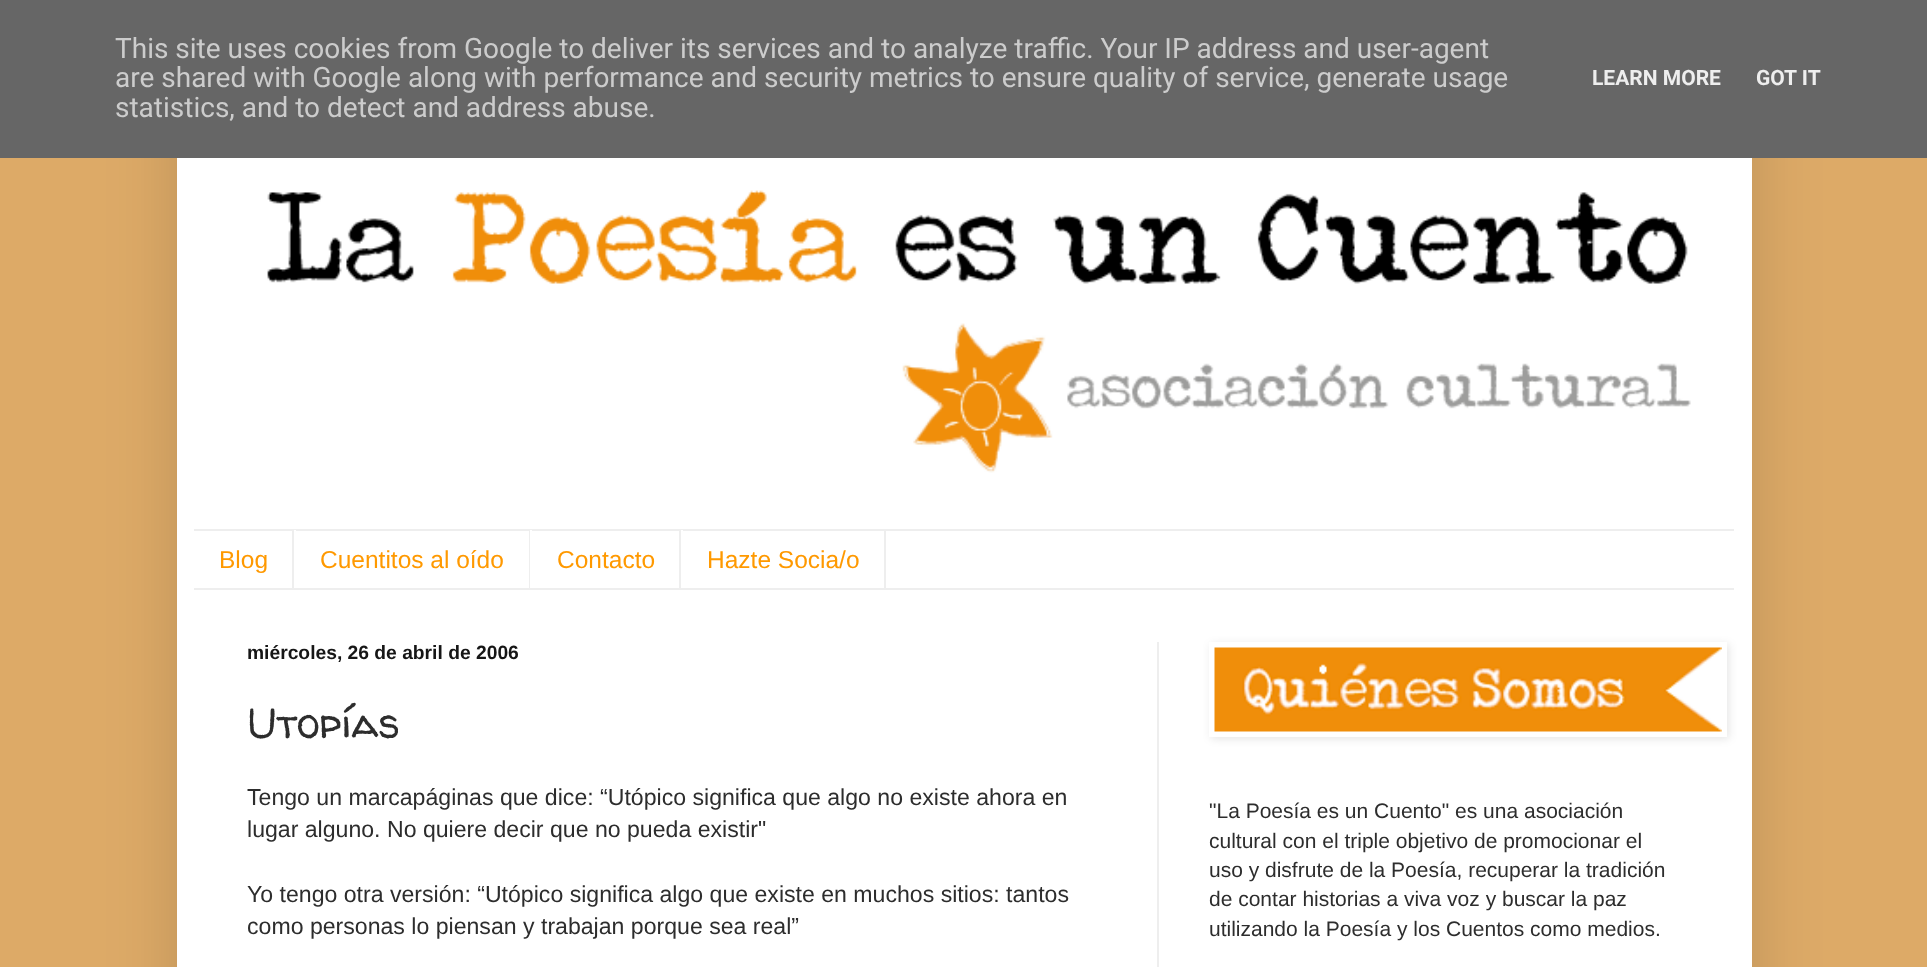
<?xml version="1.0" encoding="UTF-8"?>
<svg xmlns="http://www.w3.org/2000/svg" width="1927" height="967">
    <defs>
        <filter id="blur1" x="-50%" y="-200%" width="200%" height="500%"><feGaussianBlur stdDeviation="35"/></filter>
        <clipPath id="clip1"><path d="M 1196 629 H 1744 V 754 H 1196 Z M 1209 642 H 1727 V 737 H 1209 Z" clip-rule="evenodd"/></clipPath>
        <filter id="blur2" x="-50%" y="-200%" width="200%" height="500%"><feGaussianBlur stdDeviation="4.5"/></filter>
    </defs>
    <rect width="100%" height="100%" fill="#DDAA67"/>
    <rect x="177" y="53" width="1575" height="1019" fill="#000000" fill-opacity="0.15" filter="url(#blur1)"/>
    <rect x="0" y="0" width="1927" height="158" fill="#666666"/>
    <text font-family="Roboto" font-size="28" fill="#CCCCCC">
        <tspan x="115" y="58">This site uses cookies from Google to deliver its services and to analyze traffic. Your IP address and user-agent</tspan>
        <tspan x="115" y="87">are shared with Google along with performance and security metrics to ensure quality of service, generate usage</tspan>
        <tspan x="115" y="117">statistics, and to detect and address abuse.</tspan>
    </text>
    <text x="1592" y="85" font-family="Roboto" font-size="21" font-weight="700" fill="#EEEEEE">LEARN MORE</text>
    <text x="1756" y="85" font-family="Roboto" font-size="21" font-weight="700" fill="#EEEEEE">GOT IT</text>
    <rect x="177" y="158" width="1575" height="809" fill="#FFFFFF"/>
    <image x="267" y="190" width="1424" height="283" href="img_01.png"/>
    <rect x="194" y="529" width="1540" height="2" fill="#EEEEEE"/>
    <rect x="194" y="588" width="1540" height="2" fill="#EEEEEE"/>
    <rect x="292" y="530" width="2" height="58" fill="#EEEEEE"/>
    <text x="219" y="568" font-family="Liberation Sans" font-size="24.5" fill="#FF9900">Blog</text>
    <rect x="529" y="530" width="1" height="58" fill="#EEEEEE"/>
    <rect x="294" y="530" width="2" height="1" fill="#FFFFFF"/>
    <text x="320" y="568" font-family="Liberation Sans" font-size="24.5" fill="#FF9900">Cuentitos al oído</text>
    <rect x="679" y="530" width="2" height="58" fill="#EEEEEE"/>
    <rect x="530" y="530" width="2" height="1" fill="#FFFFFF"/>
    <text x="557" y="568" font-family="Liberation Sans" font-size="24.5" fill="#FF9900">Contacto</text>
    <rect x="884" y="530" width="2" height="58" fill="#EEEEEE"/>
    <rect x="681" y="530" width="2" height="1" fill="#FFFFFF"/>
    <text x="707" y="568" font-family="Liberation Sans" font-size="24.5" fill="#FF9900">Hazte Socia/o</text>
    <rect x="1157" y="642" width="2" height="325" fill="#EEEEEE"/>
    <text x="247" y="659" font-family="Liberation Sans" font-size="19.25" font-weight="700" fill="#161616">miércoles, 26 de abril de 2006</text>
    <text x="247" y="738" font-family="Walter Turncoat" font-size="42" fill="#2D2D2D">Utopías</text>
    <text font-family="Liberation Sans" font-size="23.1" fill="#2D2D2D">
        <tspan x="247" y="805">Tengo un marcapáginas que dice: “Utópico significa que algo no existe ahora en</tspan>
        <tspan x="247" y="837">lugar alguno. No quiere decir que no pueda existir"</tspan>
    </text>
    <text font-family="Liberation Sans" font-size="23.1" fill="#2D2D2D">
        <tspan x="247" y="902">Yo tengo otra versión: “Utópico significa algo que existe en muchos sitios: tantos</tspan>
        <tspan x="247" y="934">como personas lo piensan y trabajan porque sea real”</tspan>
    </text>
    <g clip-path="url(#clip1)">
        <rect x="1211" y="644" width="518" height="95" fill="#000000" fill-opacity="0.1" filter="url(#blur2)"/>
    </g>
    <image x="1214" y="647" width="508" height="85" href="img_02.png"/>
    <text font-family="Liberation Sans" font-size="21" fill="#2D2D2D">
        <tspan x="1209" y="818">"La Poesía es un Cuento" es una asociación</tspan>
        <tspan x="1209" y="848">cultural con el triple objetivo de promocionar el</tspan>
        <tspan x="1209" y="877">uso y disfrute de la Poesía, recuperar la tradición</tspan>
        <tspan x="1209" y="906">de contar historias a viva voz y buscar la paz</tspan>
        <tspan x="1209" y="936">utilizando la Poesía y los Cuentos como medios.</tspan>
    </text>
</svg>
